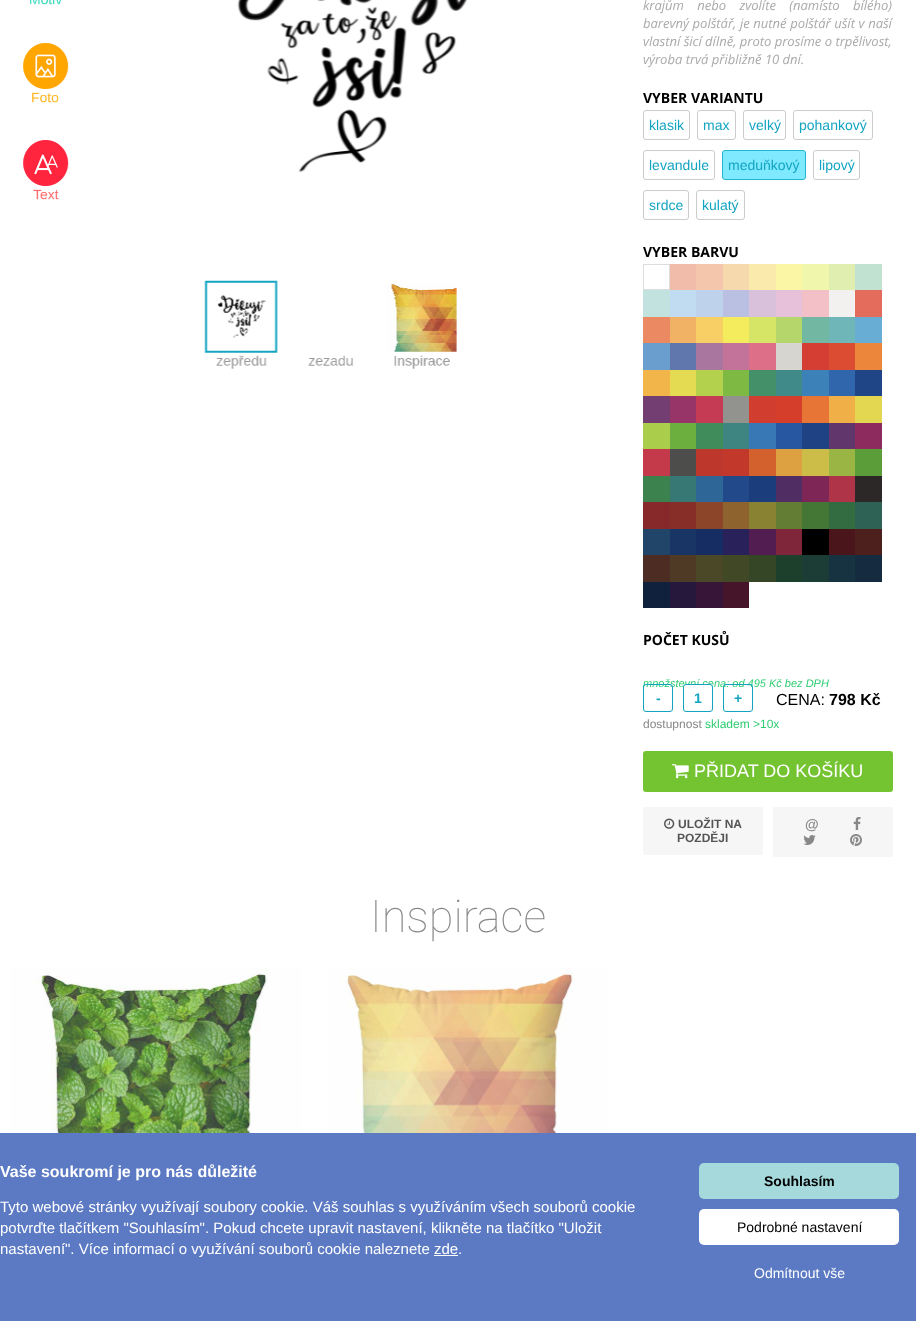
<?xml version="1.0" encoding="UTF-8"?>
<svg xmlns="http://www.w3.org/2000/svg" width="916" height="1321">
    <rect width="100%" height="100%" fill="#FFFFFF"/>
    <image x="23" y="0" width="445" height="369" href="img_01.png"/>
    <text font-family="Open Sans" font-size="13" font-style="italic" fill="#AAAAAA">
        <tspan x="643" y="10" word-spacing="10">krajům nebo zvolíte (namísto bílého)</tspan>
        <tspan x="643" y="28" word-spacing="0.25">barevný polštář, je nutné polštář ušít v naší</tspan>
        <tspan x="643" y="46">vlastní šicí dílně, proto prosíme o trpělivost,</tspan>
        <tspan x="643" y="64">výroba trvá přibližně 10 dní.</tspan>
    </text>
    <text x="643" y="103" font-family="Open Sans" font-size="14" font-weight="700" fill="#000000">VYBER VARIANTU</text>
    <rect x="643.5" y="110.5" width="46" height="29" rx="2.5" fill="none" stroke="#CCCCCC"/>
    <text x="649" y="130" font-family="Liberation Sans" font-size="14" fill="#13A4C2">klasik</text>
    <rect x="697.5" y="110.5" width="38" height="29" rx="2.5" fill="none" stroke="#CCCCCC"/>
    <text x="703" y="130" font-family="Liberation Sans" font-size="14" fill="#13A4C2">max</text>
    <rect x="743.5" y="110.5" width="42" height="29" rx="2.5" fill="none" stroke="#CCCCCC"/>
    <text x="749" y="130" font-family="Liberation Sans" font-size="14" fill="#13A4C2">velký</text>
    <rect x="793.5" y="110.5" width="79" height="29" rx="2.5" fill="none" stroke="#CCCCCC"/>
    <text x="799" y="130" font-family="Liberation Sans" font-size="14" fill="#13A4C2">pohankový</text>
    <rect x="643.5" y="150.5" width="71" height="29" rx="2.5" fill="none" stroke="#CCCCCC"/>
    <text x="649" y="170" font-family="Liberation Sans" font-size="14" fill="#13A4C2">levandule</text>
    <rect x="722.5" y="150.5" width="83" height="29" rx="2.5" fill="#7EE9FF" stroke="#23B4D2"/>
    <text x="728" y="170" font-family="Liberation Sans" font-size="14" fill="#13A4C2">meduňkový</text>
    <rect x="813.5" y="150.5" width="46" height="29" rx="2.5" fill="none" stroke="#CCCCCC"/>
    <text x="819" y="170" font-family="Liberation Sans" font-size="14" fill="#13A4C2">lipový</text>
    <rect x="643.5" y="190.5" width="45" height="29" rx="2.5" fill="none" stroke="#CCCCCC"/>
    <text x="649" y="210" font-family="Liberation Sans" font-size="14" fill="#13A4C2">srdce</text>
    <rect x="696.5" y="190.5" width="48" height="29" rx="2.5" fill="none" stroke="#CCCCCC"/>
    <text x="702" y="210" font-family="Liberation Sans" font-size="14" fill="#13A4C2">kulatý</text>
    <text x="643" y="257" font-family="Open Sans" font-size="14" font-weight="700" fill="#000000">VYBER BARVU</text>
    <rect x="643.5" y="264.5" width="26" height="25" fill="none" stroke="#DDDDDD"/>
    <rect x="670" y="264" width="26" height="26" fill="#F2BCAB"/>
    <rect x="696" y="264" width="27" height="26" fill="#F4C6AB"/>
    <rect x="723" y="264" width="26" height="26" fill="#F7D9AE"/>
    <rect x="749" y="264" width="27" height="26" fill="#FAEAAC"/>
    <rect x="776" y="264" width="26" height="26" fill="#FBF5A6"/>
    <rect x="802" y="264" width="27" height="26" fill="#F1F6AD"/>
    <rect x="829" y="264" width="26" height="26" fill="#E0EFAF"/>
    <rect x="855" y="264" width="27" height="26" fill="#C1E2D0"/>
    <rect x="643" y="290" width="27" height="27" fill="#C2E2E0"/>
    <rect x="670" y="290" width="26" height="27" fill="#C1DBF0"/>
    <rect x="696" y="290" width="27" height="27" fill="#BED2EC"/>
    <rect x="723" y="290" width="26" height="27" fill="#B9C0E1"/>
    <rect x="749" y="290" width="27" height="27" fill="#DAC1DB"/>
    <rect x="776" y="290" width="26" height="27" fill="#E7C1D9"/>
    <rect x="802" y="290" width="27" height="27" fill="#F3C0C7"/>
    <rect x="829" y="290" width="26" height="27" fill="#F3F1EF"/>
    <rect x="855" y="290" width="27" height="27" fill="#E36C5C"/>
    <rect x="643" y="317" width="27" height="26" fill="#EB8962"/>
    <rect x="670" y="317" width="26" height="26" fill="#F2B266"/>
    <rect x="696" y="317" width="27" height="26" fill="#F7CF64"/>
    <rect x="723" y="317" width="26" height="26" fill="#F4EC5D"/>
    <rect x="749" y="317" width="27" height="26" fill="#D7E566"/>
    <rect x="776" y="317" width="26" height="26" fill="#B4D66A"/>
    <rect x="802" y="317" width="27" height="26" fill="#71B7A2"/>
    <rect x="829" y="317" width="26" height="26" fill="#6EB6B7"/>
    <rect x="855" y="317" width="27" height="26" fill="#68ADD4"/>
    <rect x="643" y="343" width="27" height="27" fill="#699ECF"/>
    <rect x="670" y="343" width="26" height="27" fill="#5F77AD"/>
    <rect x="696" y="343" width="27" height="27" fill="#A9769F"/>
    <rect x="723" y="343" width="26" height="27" fill="#C37399"/>
    <rect x="749" y="343" width="27" height="27" fill="#DE6F88"/>
    <rect x="776" y="343" width="26" height="27" fill="#D6D5D0"/>
    <rect x="802" y="343" width="27" height="27" fill="#D43E33"/>
    <rect x="829" y="343" width="26" height="27" fill="#DB4C32"/>
    <rect x="855" y="343" width="27" height="27" fill="#EB863A"/>
    <rect x="643" y="370" width="27" height="26" fill="#F2B549"/>
    <rect x="670" y="370" width="26" height="26" fill="#E5DB53"/>
    <rect x="696" y="370" width="27" height="26" fill="#B4D14E"/>
    <rect x="723" y="370" width="26" height="26" fill="#7EB943"/>
    <rect x="749" y="370" width="27" height="26" fill="#439069"/>
    <rect x="776" y="370" width="26" height="26" fill="#408A89"/>
    <rect x="802" y="370" width="27" height="26" fill="#3C81B8"/>
    <rect x="829" y="370" width="26" height="26" fill="#3066AC"/>
    <rect x="855" y="370" width="27" height="26" fill="#204587"/>
    <rect x="643" y="396" width="27" height="27" fill="#733E71"/>
    <rect x="670" y="396" width="26" height="27" fill="#983568"/>
    <rect x="696" y="396" width="27" height="27" fill="#C63B54"/>
    <rect x="723" y="396" width="26" height="27" fill="#92938F"/>
    <rect x="749" y="396" width="27" height="27" fill="#D13D2E"/>
    <rect x="776" y="396" width="26" height="27" fill="#D43E2B"/>
    <rect x="802" y="396" width="27" height="27" fill="#E67536"/>
    <rect x="829" y="396" width="26" height="27" fill="#F1AF47"/>
    <rect x="855" y="396" width="27" height="27" fill="#E3D752"/>
    <rect x="643" y="423" width="27" height="26" fill="#ABCD4C"/>
    <rect x="670" y="423" width="26" height="26" fill="#6CAF3F"/>
    <rect x="696" y="423" width="27" height="26" fill="#408C5A"/>
    <rect x="723" y="423" width="26" height="26" fill="#3E8581"/>
    <rect x="749" y="423" width="27" height="26" fill="#3879B5"/>
    <rect x="776" y="423" width="26" height="26" fill="#2857A1"/>
    <rect x="802" y="423" width="27" height="26" fill="#1E4283"/>
    <rect x="829" y="423" width="26" height="26" fill="#61366C"/>
    <rect x="855" y="423" width="27" height="26" fill="#8D2B5F"/>
    <rect x="643" y="449" width="27" height="27" fill="#C53A4B"/>
    <rect x="670" y="449" width="26" height="27" fill="#4D4E4B"/>
    <rect x="696" y="449" width="27" height="27" fill="#BD372C"/>
    <rect x="723" y="449" width="26" height="27" fill="#C2382A"/>
    <rect x="749" y="449" width="27" height="27" fill="#D2612E"/>
    <rect x="776" y="449" width="26" height="27" fill="#DDA141"/>
    <rect x="802" y="449" width="27" height="27" fill="#CCBD48"/>
    <rect x="829" y="449" width="26" height="27" fill="#9AB543"/>
    <rect x="855" y="449" width="27" height="27" fill="#5A9D39"/>
    <rect x="643" y="476" width="27" height="26" fill="#3C824E"/>
    <rect x="670" y="476" width="26" height="26" fill="#377774"/>
    <rect x="696" y="476" width="27" height="26" fill="#2F6698"/>
    <rect x="723" y="476" width="26" height="26" fill="#224A8B"/>
    <rect x="749" y="476" width="27" height="26" fill="#1C3D7B"/>
    <rect x="776" y="476" width="26" height="26" fill="#502E63"/>
    <rect x="802" y="476" width="27" height="26" fill="#7E2756"/>
    <rect x="829" y="476" width="26" height="26" fill="#AF3447"/>
    <rect x="855" y="476" width="27" height="26" fill="#2C2828"/>
    <rect x="643" y="502" width="27" height="27" fill="#87282A"/>
    <rect x="670" y="502" width="26" height="27" fill="#882E29"/>
    <rect x="696" y="502" width="27" height="27" fill="#8C4529"/>
    <rect x="723" y="502" width="26" height="27" fill="#8E632D"/>
    <rect x="749" y="502" width="27" height="27" fill="#888232"/>
    <rect x="776" y="502" width="26" height="27" fill="#637D34"/>
    <rect x="802" y="502" width="27" height="27" fill="#447636"/>
    <rect x="829" y="502" width="26" height="27" fill="#326C40"/>
    <rect x="855" y="502" width="27" height="27" fill="#2E6254"/>
    <rect x="643" y="529" width="27" height="26" fill="#204569"/>
    <rect x="670" y="529" width="26" height="26" fill="#183566"/>
    <rect x="696" y="529" width="27" height="26" fill="#152D63"/>
    <rect x="723" y="529" width="26" height="26" fill="#29225A"/>
    <rect x="749" y="529" width="27" height="26" fill="#521E52"/>
    <rect x="776" y="529" width="26" height="26" fill="#7F263A"/>
    <rect x="802" y="529" width="27" height="26" fill="#000000"/>
    <rect x="829" y="529" width="26" height="26" fill="#4A161C"/>
    <rect x="855" y="529" width="27" height="26" fill="#4D201E"/>
    <rect x="643" y="555" width="27" height="27" fill="#4D2D23"/>
    <rect x="670" y="555" width="26" height="27" fill="#4F3B25"/>
    <rect x="696" y="555" width="27" height="27" fill="#4B4827"/>
    <rect x="723" y="555" width="26" height="27" fill="#404826"/>
    <rect x="749" y="555" width="27" height="27" fill="#344625"/>
    <rect x="776" y="555" width="26" height="27" fill="#1D402D"/>
    <rect x="802" y="555" width="27" height="27" fill="#1C3D36"/>
    <rect x="829" y="555" width="26" height="27" fill="#173240"/>
    <rect x="855" y="555" width="27" height="27" fill="#142B40"/>
    <rect x="643" y="582" width="27" height="26" fill="#10213E"/>
    <rect x="670" y="582" width="26" height="26" fill="#25183C"/>
    <rect x="696" y="582" width="27" height="26" fill="#371539"/>
    <rect x="723" y="582" width="26" height="26" fill="#47152A"/>
    <text x="643" y="645" font-family="Open Sans" font-size="14" font-weight="700" fill="#000000">POČET KUSŮ</text>
    <text x="643" y="687" font-family="Liberation Sans" font-size="11" font-style="italic" fill="#2ECC71">množstevní cena: od 495 Kč bez DPH</text>
    <rect x="643.5" y="684.5" width="29" height="27" rx="2.5" fill="none" stroke="#13A4C2"/>
    <text x="656" y="703" font-family="Liberation Sans" font-size="14" font-weight="700" fill="#13A4C2">-</text>
    <rect x="683.5" y="684.5" width="29" height="27" rx="2.5" fill="#FFFFFF" stroke="#13A4C2"/>
    <text x="694" y="703" font-family="Liberation Sans" font-size="14" font-weight="700" fill="#13A4C2">1</text>
    <rect x="723.5" y="684.5" width="29" height="27" rx="2.5" fill="none" stroke="#13A4C2"/>
    <text x="734" y="703" font-family="Liberation Sans" font-size="14" font-weight="700" fill="#13A4C2">+</text>
    <text x="776" y="705" font-family="Liberation Sans" font-size="16" fill="#000000">CENA:</text>
    <text x="829" y="705" font-family="Liberation Sans" font-size="16" font-weight="700" fill="#000000">798 Kč</text>
    <text x="643" y="728" font-family="Liberation Sans" font-size="12" fill="#888888">dostupnost</text>
    <text x="705" y="728" font-family="Liberation Sans" font-size="12" fill="#2ECC71">skladem &gt;10x</text>
    <rect x="643" y="751" width="250" height="41" rx="3" fill="#74C330"/>
    <image x="672" y="764" width="17" height="15" href="img_02.png"/>
    <text x="694" y="777" font-family="Liberation Sans" font-size="18" fill="#FFFFFF">PŘIDAT DO KOŠÍKU</text>
    <rect x="643" y="807" width="120" height="48" rx="2" fill="#F6F6F6"/>
    <image x="664" y="818" width="11" height="11" href="img_03.png"/>
    <text x="678" y="828" font-family="Liberation Sans" font-size="12" font-weight="700" fill="#555555">ULOŽIT NA</text>
    <text x="677" y="842" font-family="Liberation Sans" font-size="12" font-weight="700" fill="#555555">POZDĚJI</text>
    <rect x="773" y="807" width="120" height="50" rx="2" fill="#F6F6F6"/>
    <text x="805" y="829" font-family="Liberation Sans" font-size="14" font-weight="700" fill="#888888">@</text>
    <image x="853" y="817" width="8" height="13" href="img_04.png"/>
    <image x="803" y="835" width="13" height="10" href="img_05.png"/>
    <image x="850" y="834" width="12" height="12" href="img_06.png"/>
    <text x="370" y="932" font-family="Roboto" font-size="45" font-weight="100" fill="#888888">Inspirace</text>
    <image x="11" y="968" width="290" height="165" href="img_07.png"/>
    <image x="328" y="968" width="279" height="165" href="img_08.png"/>
    <rect x="0" y="1133" width="916" height="188" fill="#5C7AC3"/>
    <text x="0" y="1177" font-family="Liberation Sans" font-size="16" font-weight="700" fill="#FFFFFF">Vaše soukromí je pro nás důležité</text>
    <text font-family="Liberation Sans" font-size="15" fill="#FFFFFF">
        <tspan x="0" y="1212">Tyto webové stránky využívají soubory cookie. Váš souhlas s využíváním všech souborů cookie</tspan>
        <tspan x="0" y="1233">potvrďte tlačítkem "Souhlasím". Pokud chcete upravit nastavení, klikněte na tlačítko "Uložit</tspan>
        <tspan x="0" y="1254">nastavení". Více informací o využívání souborů cookie naleznete zde.</tspan>
    </text>
    <rect x="434" y="1255" width="24" height="1" fill="#FFFFFF"/>
    <rect x="699" y="1163" width="200" height="36" rx="5" fill="#A6D9DC"/>
    <text x="764" y="1186" font-family="Liberation Sans" font-size="14" font-weight="700" fill="#000000">Souhlasím</text>
    <rect x="699" y="1209" width="200" height="36" rx="5" fill="#FFFFFF"/>
    <text x="737" y="1232" font-family="Liberation Sans" font-size="14" fill="#000000">Podrobné nastavení</text>
    <text x="754" y="1278" font-family="Liberation Sans" font-size="14" fill="#FFFFFF">Odmítnout vše</text>
</svg>
